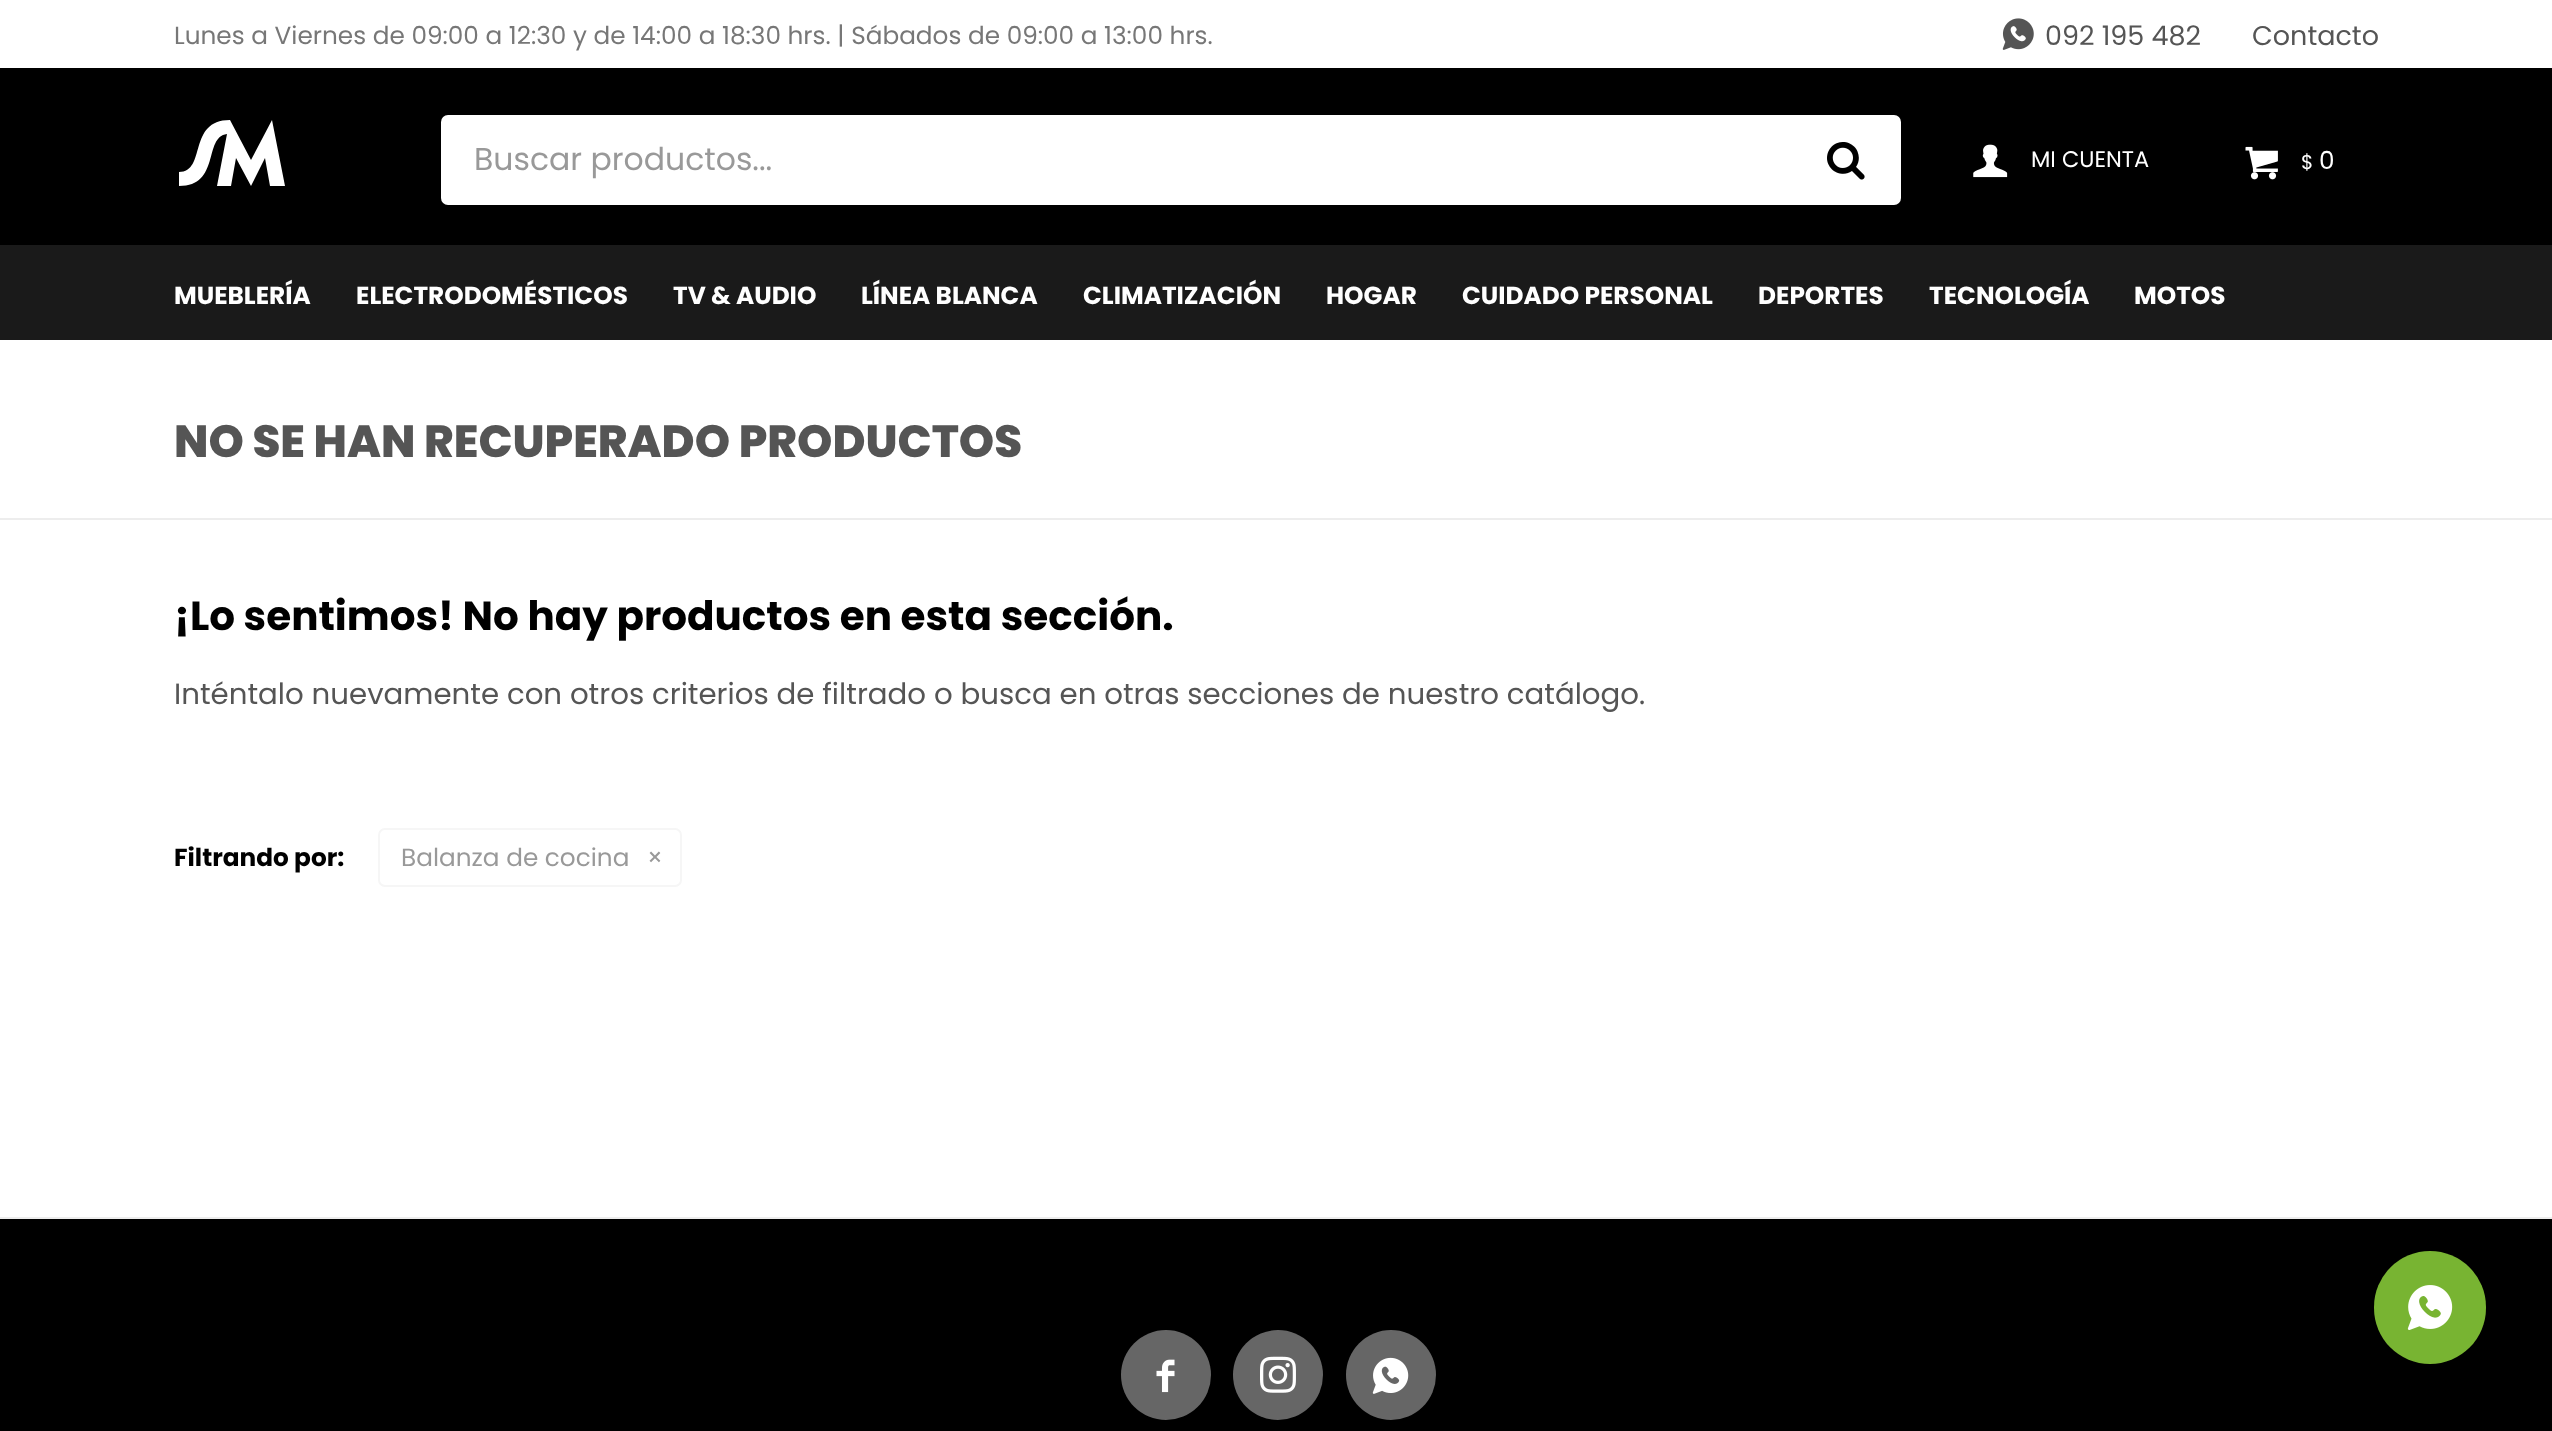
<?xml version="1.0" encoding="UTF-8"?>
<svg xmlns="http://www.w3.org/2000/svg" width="2552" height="1431">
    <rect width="100%" height="100%" fill="#FFFFFF"/>
    <text x="174" y="44" font-family="Poppins" font-size="24.75" fill="#777777">Lunes a Viernes de 09:00 a 12:30 y de 14:00 a 18:30 hrs. | Sábados de 09:00 a 13:00 hrs.</text>
    <image x="2002" y="18" width="32" height="32" href="img_01.png"/>
    <text x="2045" y="45" font-family="Poppins" font-size="27" fill="#555555">092 195 482</text>
    <text x="2252" y="45" font-family="Poppins" font-size="27" fill="#555555">Contacto</text>
    <rect x="0" y="68" width="2552" height="177" fill="#000000"/>
    <path d="M 272 120 L 251 160 L 230 120 C 187 120 207 172 179 172 V 186 C 221 186 203 137 227 134 L 217 186 H 231 L 236 158 L 251 186 L 265 158 L 270 186 H 285 Z" fill="#FFFFFF"/>
    <rect x="441" y="115" width="1460" height="90" rx="7" fill="#FFFFFF"/>
    <text x="474" y="170" font-family="Poppins" font-size="31.5" fill="#999999">Buscar productos...</text>
    <image x="1827" y="142" width="38" height="38" href="img_02.png"/>
    <image x="1973" y="144" width="35" height="34" href="img_03.png"/>
    <text x="2031" y="167" font-family="Poppins" font-size="22.5" fill="#FFFFFF">MI CUENTA</text>
    <image x="2245" y="146" width="33" height="34" href="img_04.png"/>
    <text x="2301" y="169" font-family="Poppins" font-size="20" fill="#FFFFFF">$</text>
    <text x="2319" y="169" font-family="Poppins" font-size="24.75" fill="#FFFFFF">0</text>
    <rect x="0" y="245" width="2552" height="95" fill="#1A1A1A"/>
    <text x="174" y="304" font-family="Poppins" font-size="24.75" font-weight="700" fill="#FFFFFF">MUEBLERÍA</text>
    <text x="356" y="304" font-family="Poppins" font-size="24.75" font-weight="700" fill="#FFFFFF">ELECTRODOMÉSTICOS</text>
    <text x="673" y="304" font-family="Poppins" font-size="24.75" font-weight="700" fill="#FFFFFF">TV &amp; AUDIO</text>
    <text x="861" y="304" font-family="Poppins" font-size="24.75" font-weight="700" fill="#FFFFFF">LÍNEA BLANCA</text>
    <text x="1083" y="304" font-family="Poppins" font-size="24.75" font-weight="700" fill="#FFFFFF">CLIMATIZACIÓN</text>
    <text x="1326" y="304" font-family="Poppins" font-size="24.75" font-weight="700" fill="#FFFFFF">HOGAR</text>
    <text x="1462" y="304" font-family="Poppins" font-size="24.75" font-weight="700" fill="#FFFFFF">CUIDADO PERSONAL</text>
    <text x="1758" y="304" font-family="Poppins" font-size="24.75" font-weight="700" fill="#FFFFFF">DEPORTES</text>
    <text x="1929" y="304" font-family="Poppins" font-size="24.75" font-weight="700" fill="#FFFFFF">TECNOLOGÍA</text>
    <text x="2134" y="304" font-family="Poppins" font-size="24.75" font-weight="700" fill="#FFFFFF">MOTOS</text>
    <text x="174" y="457" font-family="Poppins" font-size="45" font-weight="800" fill="#555555">NO SE HAN RECUPERADO PRODUCTOS</text>
    <rect x="0" y="518" width="2552" height="2" fill="#EDEDED"/>
    <text x="174" y="630" font-family="Poppins" font-size="40.5" font-weight="700" fill="#000000">¡Lo sentimos! No hay productos en esta sección.</text>
    <text x="174" y="704" font-family="Poppins" font-size="29.25" fill="#555555">Inténtalo nuevamente con otros criterios de filtrado o busca en otras secciones de nuestro catálogo.</text>
    <text x="174" y="866" font-family="Poppins" font-size="24.75" font-weight="700" fill="#000000">Filtrando por:</text>
    <rect x="379" y="829" width="302" height="57" rx="6" fill="none" stroke="#F6F6F6" stroke-width="2"/>
    <text x="401" y="866" font-family="Poppins" font-size="24.75" fill="#999999">Balanza de cocina</text>
    <text x="647" y="866" font-family="Poppins" font-size="24.75" fill="#999999">×</text>
    <rect x="0" y="1219" width="2552" height="212" fill="#000000"/>
    <rect x="0" y="1217" width="2552" height="2" fill="#EDEDED"/>
    <circle cx="1166" cy="1375" r="45" fill="#666666"/>
    <image x="1156" y="1359" width="19" height="34" href="img_05.png"/>
    <circle cx="1278" cy="1375" r="45" fill="#666666"/>
    <image x="1260" y="1356" width="36" height="37" href="img_06.png"/>
    <circle cx="1391" cy="1375" r="45" fill="#666666"/>
    <image x="1372" y="1357" width="37" height="37" href="img_07.png"/>
    <rect x="2374" y="1251" width="112" height="113" rx="56" fill="#78B432"/>
    <image x="2407" y="1285" width="46" height="45" href="img_08.png"/>
</svg>
